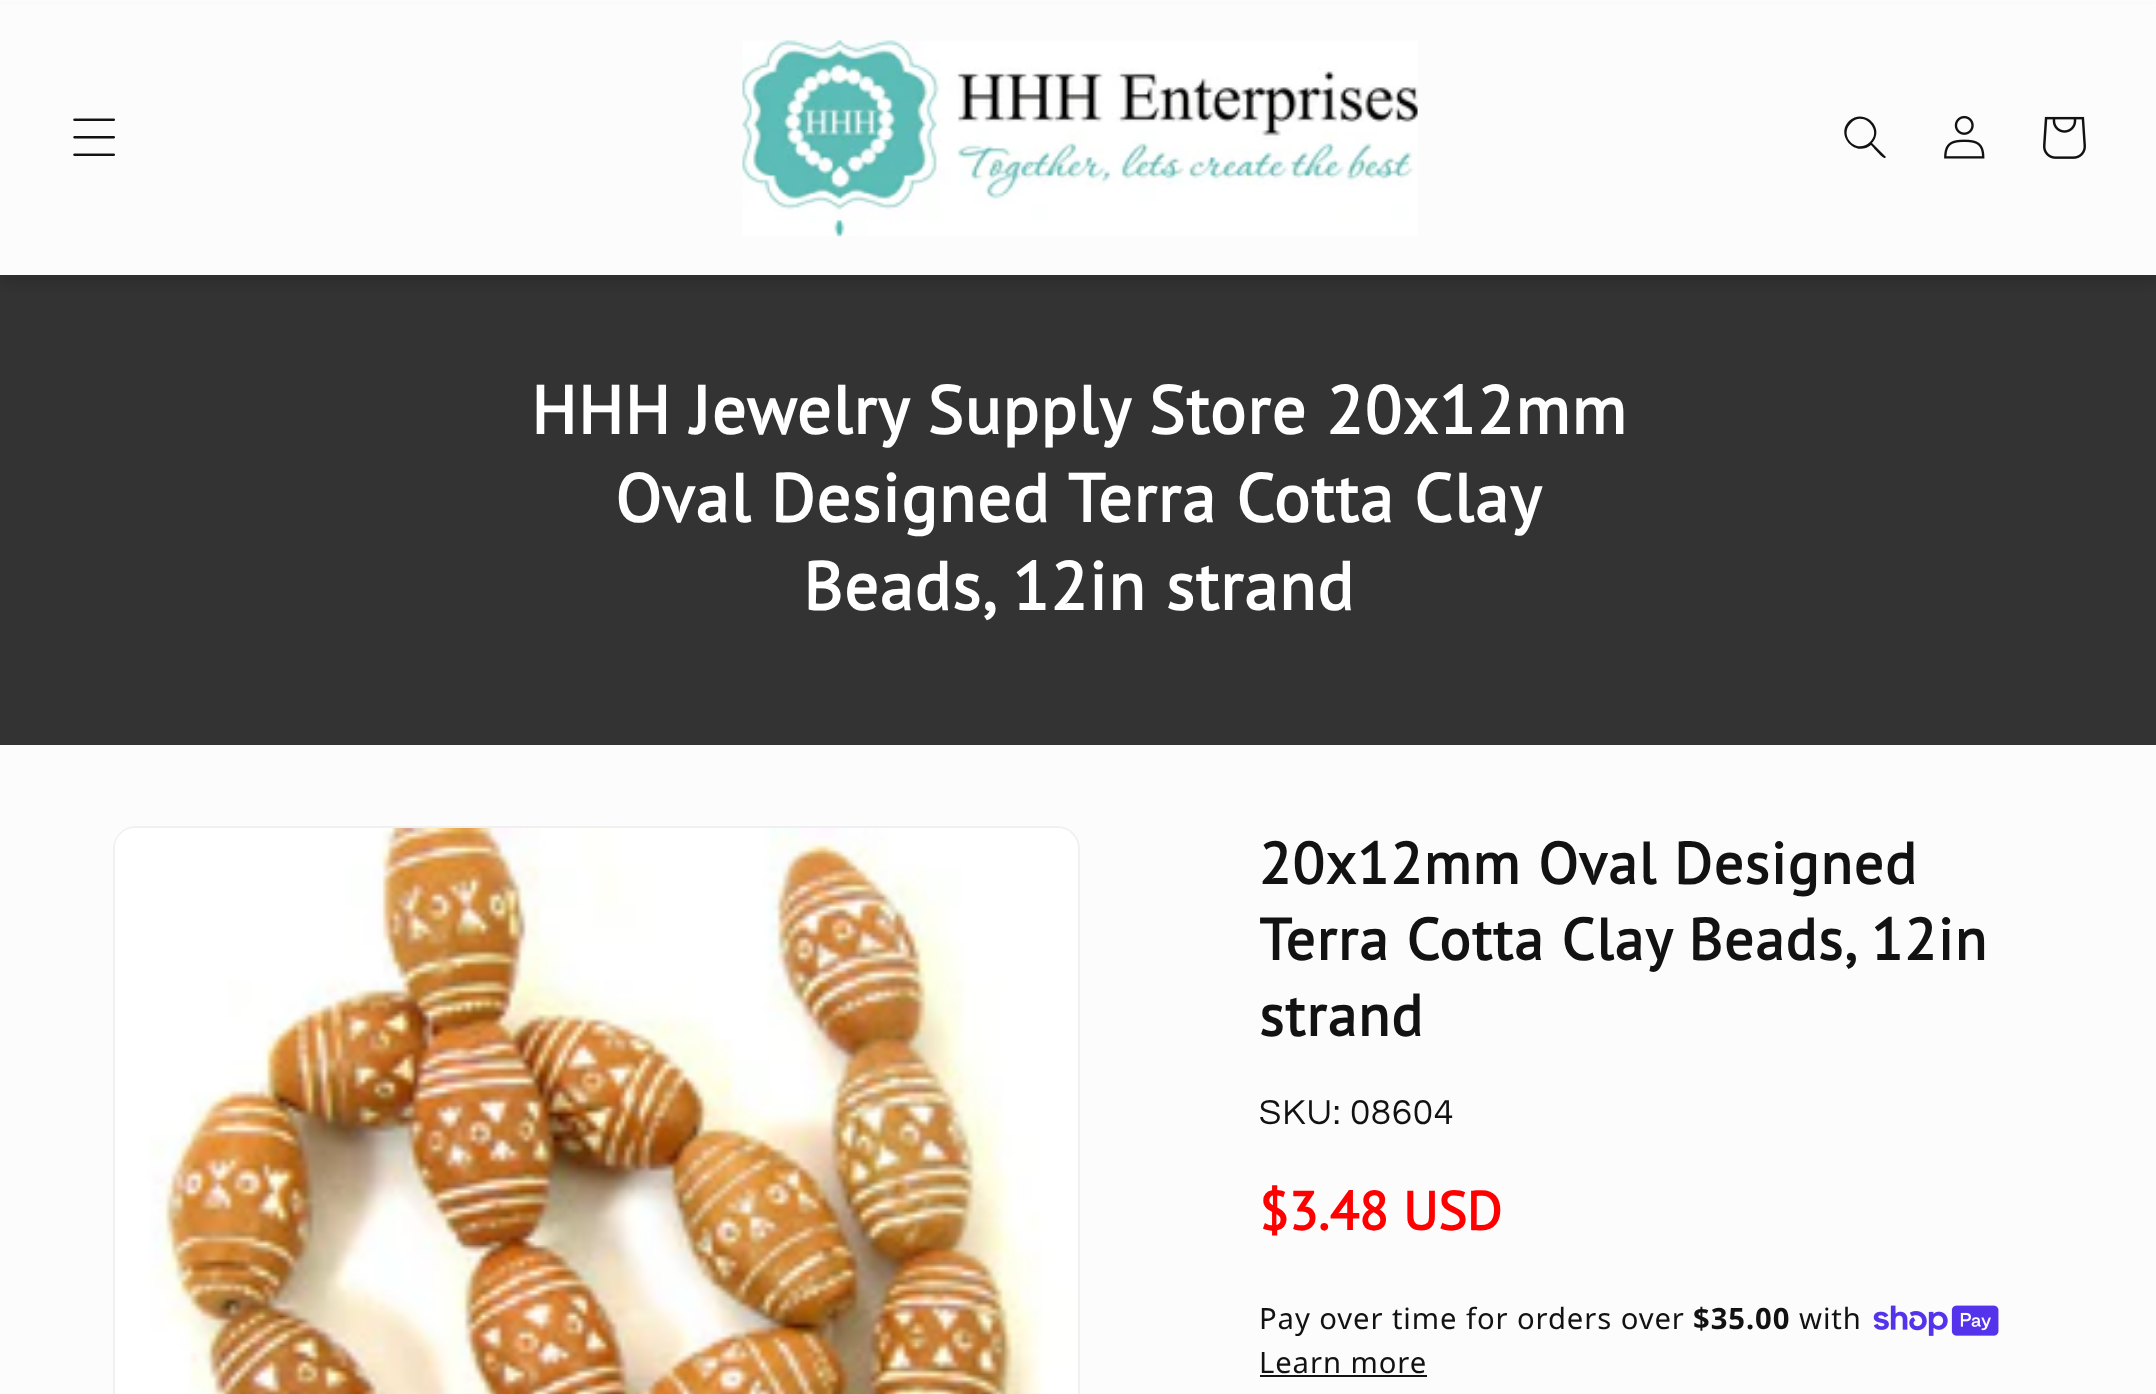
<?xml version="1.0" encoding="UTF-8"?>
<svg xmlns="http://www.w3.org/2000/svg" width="2156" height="1394">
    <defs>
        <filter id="blur1" x="-50%" y="-200%" width="200%" height="500%"><feGaussianBlur stdDeviation="5.5"/></filter>
    </defs>
    <rect width="100%" height="100%" fill="#FCFCFC"/>
    <rect x="0" y="275" width="2156" height="470" fill="#333333"/>
    <rect x="0" y="11" width="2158" height="275" fill="#000000" fill-opacity="0.1" filter="url(#blur1)"/>
    <rect x="0" y="4" width="2156" height="271" fill="#FCFCFC"/>
    <image x="73" y="118" width="42" height="38" href="img_01.png"/>
    <image x="742" y="40" width="676" height="197" href="img_02.png"/>
    <path d="M 1870 142 C 1857 155 1838 136 1851 123 C 1863 110 1883 130 1870 142 Z M 1871 145 C 1855 158 1835 135 1849 121 C 1864 107 1886 128 1872 143 L 1886 157 L 1885 158 C 1883 159 1873 147 1871 145 Z" fill="#121212" fill-rule="evenodd"/>
    <image x="1944" y="115" width="41" height="44" href="img_03.png"/>
    <image x="2043" y="116" width="43" height="43" href="img_04.png"/>
    <text x="531" y="434" font-family="PT Sans" font-size="67.5" font-weight="700" letter-spacing="1.35" fill="#FFFFFF">HHH Jewelry Supply Store 20x12mm</text>
    <text x="615" y="522" font-family="PT Sans" font-size="67.5" font-weight="700" letter-spacing="1.35" fill="#FFFFFF">Oval Designed Terra Cotta Clay</text>
    <text x="803" y="610" font-family="PT Sans" font-size="67.5" font-weight="700" letter-spacing="1.35" fill="#FFFFFF">Beads, 12in strand</text>
    <rect x="114" y="827" width="965" height="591" rx="22" fill="none" stroke="#F0F0F0" stroke-width="2"/>
    <image x="115" y="828" width="963" height="566" href="img_05.png"/>
    <text font-family="PT Sans" font-size="58.5" font-weight="700" letter-spacing="1.35" fill="#121212">
        <tspan x="1259" y="884">20x12mm Oval Designed</tspan>
        <tspan x="1259" y="960">Terra Cotta Clay Beads, 12in</tspan>
        <tspan x="1259" y="1036">strand</tspan>
    </text>
    <text x="1259" y="1124" font-family="Questrial" font-size="36" letter-spacing="1.1" fill="#121212">SKU: 08604</text>
    <text x="1259" y="1230" font-family="PT Sans" font-size="54" font-weight="700" fill="#FF0000">$3.48 USD</text>
    <text x="1259" y="1329" font-family="Noto Sans" font-size="29.25" letter-spacing="0.9" fill="#121212">Pay over time for orders over</text>
    <text x="1693" y="1329" font-family="Noto Sans" font-size="29.25" font-weight="700" letter-spacing="0.9" fill="#121212">$35.00</text>
    <text x="1799" y="1329" font-family="Noto Sans" font-size="29.25" letter-spacing="0.9" fill="#121212">with</text>
    <image x="1873" y="1305" width="126" height="31" href="img_06.png"/>
    <text x="1259" y="1373" font-family="Noto Sans" font-size="29.25" letter-spacing="0.9" fill="#121212">Learn more</text>
    <rect x="1260" y="1375" width="167" height="2" fill="#121212"/>
</svg>
